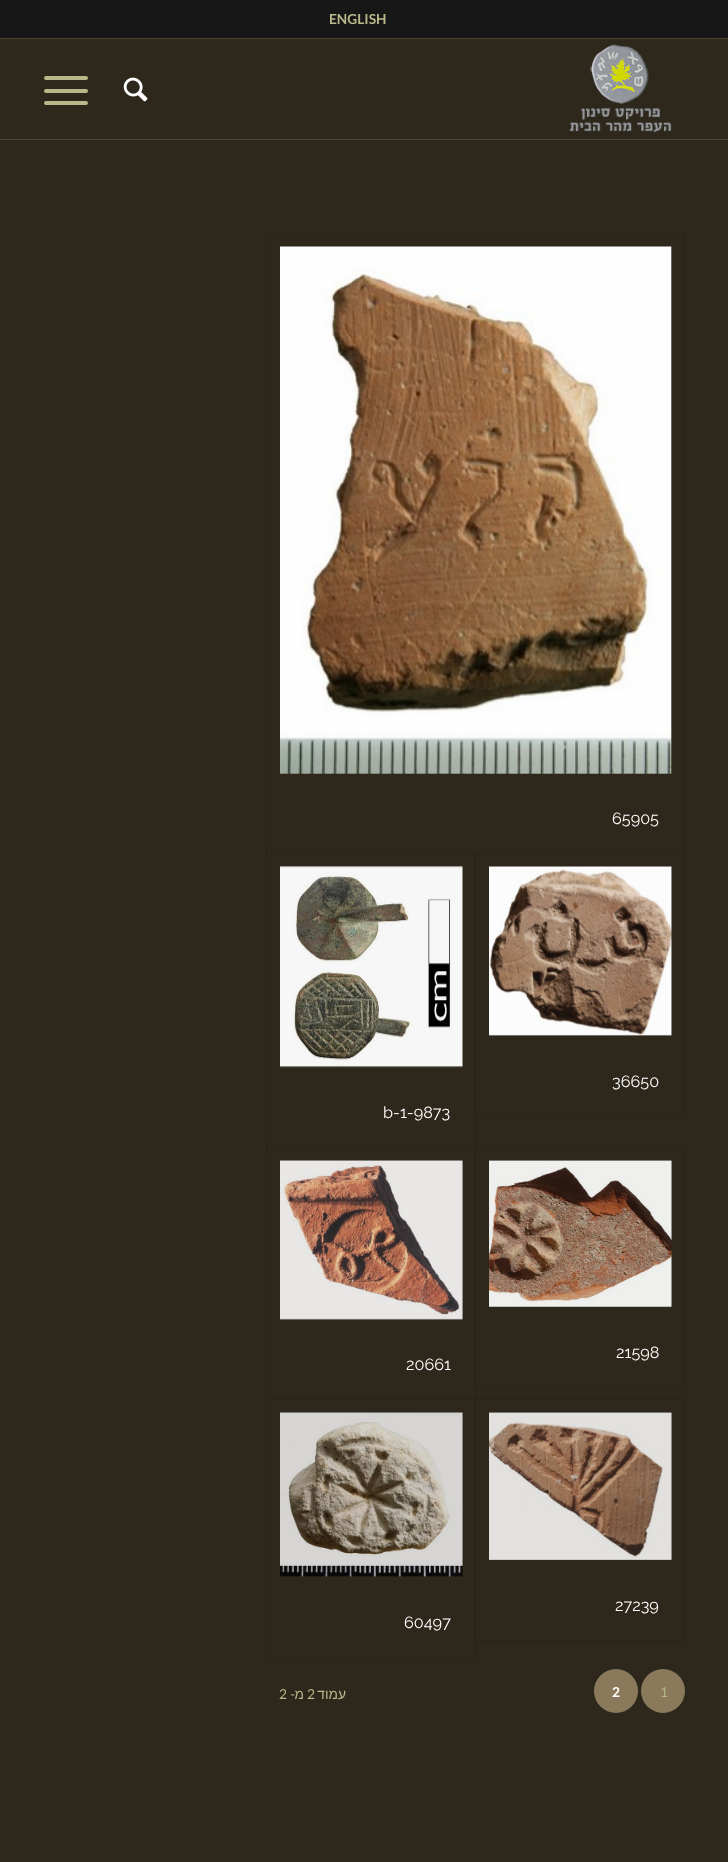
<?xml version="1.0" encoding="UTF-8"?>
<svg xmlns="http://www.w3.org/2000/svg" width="728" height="1862">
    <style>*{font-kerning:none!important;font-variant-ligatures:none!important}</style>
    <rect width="100%" height="100%" fill="#2E271C"/>
    <rect x="0" y="0" width="728" height="38" fill="#171717"/>
    <rect x="0" y="38" width="728" height="1" fill="#4F422F"/>
    <text x="329" y="24" font-family="Lato" font-size="13.75" font-weight="700" fill="#B8B88A">ENGLISH</text>
    <rect x="0" y="139" width="728" height="1" fill="#4F422F"/>
    <rect x="44" y="89" width="44" height="4" rx="2" fill="#B8B88A"/>
    <rect x="44" y="76" width="44" height="4" rx="2" fill="#B8B88A"/>
    <rect x="44" y="101" width="44" height="4" rx="2" fill="#B8B88A"/>
    <image x="123" y="77" width="25" height="25" href="img_01.png"/>
    <image x="569" y="44" width="103" height="89" href="img_02.png"/>
    <rect x="266.5" y="233.5" width="418" height="621" fill="none" stroke="#292319"/>
    <image x="280" y="246" width="392" height="528" href="img_03.png"/>
    <text x="612" y="824" font-family="Raleway" font-size="16.25" font-weight="100" fill="#FFFFFF">65905</text>
    <rect x="475.5" y="853.5" width="209" height="264" fill="none" stroke="#000000" stroke-opacity="0.1"/>
    <rect x="476" y="854" width="208" height="1" fill="#2E271C"/>
    <image x="489" y="866" width="183" height="170" href="img_04.png"/>
    <text x="612" y="1087" font-family="Raleway" font-size="16.25" font-weight="100" fill="#FFFFFF">36650</text>
    <rect x="266.5" y="853.5" width="209" height="295" fill="none" stroke="#000000" stroke-opacity="0.1"/>
    <rect x="268" y="854" width="207" height="1" fill="#2E271C"/>
    <image x="280" y="866" width="183" height="202" href="img_05.png"/>
    <text x="383" y="1118" font-family="Raleway" font-size="16.25" font-weight="100" fill="#FFFFFF">b-1-9873</text>
    <rect x="475.5" y="1146.5" width="209" height="242" fill="none" stroke="#000000" stroke-opacity="0.1"/>
    <image x="489" y="1160" width="183" height="147" href="img_06.png"/>
    <text x="616" y="1358" font-family="Raleway" font-size="16.25" font-weight="100" fill="#FFFFFF">21598</text>
    <rect x="266.5" y="1146.5" width="209" height="254" fill="none" stroke="#000000" stroke-opacity="0.1"/>
    <rect x="268" y="1148" width="207" height="1" fill="#2E271C"/>
    <image x="280" y="1160" width="183" height="160" href="img_07.png"/>
    <text x="406" y="1370" font-family="Raleway" font-size="16.25" font-weight="100" fill="#FFFFFF">20661</text>
    <rect x="475.5" y="1399.5" width="209" height="241" fill="none" stroke="#000000" stroke-opacity="0.1"/>
    <image x="489" y="1412" width="183" height="148" href="img_08.png"/>
    <text x="615" y="1611" font-family="Raleway" font-size="16.25" font-weight="100" fill="#FFFFFF">27239</text>
    <rect x="266.5" y="1399.5" width="209" height="258" fill="none" stroke="#000000" stroke-opacity="0.1"/>
    <rect x="268" y="1400" width="207" height="1" fill="#2E271C"/>
    <image x="280" y="1412" width="183" height="165" href="img_09.png"/>
    <text x="404" y="1628" font-family="Raleway" font-size="16.25" font-weight="100" fill="#FFFFFF">60497</text>
    <text x="279" y="1699" font-family="Lato" font-size="13.75" fill="#B8B88A">2</text>
    <text x="295" y="1699" font-family="Lato" font-size="13.75" direction="rtl" fill="#B8B88A">-</text>
    <text x="304" y="1699" font-family="Liberation Sans" font-size="13.75" direction="rtl" fill="#B8B88A">מ</text>
    <text x="307" y="1699" font-family="Lato" font-size="13.75" fill="#B8B88A">2</text>
    <text x="346" y="1699" font-family="Liberation Sans" font-size="13.75" direction="rtl" fill="#B8B88A">עמוד</text>
    <circle cx="616" cy="1691" r="22" fill="#8A7A5B"/>
    <text x="612" y="1697" font-family="Lato" font-size="13.75" font-weight="700" fill="#FFFFFF">2</text>
    <circle cx="663" cy="1691" r="22" fill="#8A7A5B"/>
    <text x="660" y="1697" font-family="Lato" font-size="13.75" fill="#B8B88A">1</text>
</svg>
